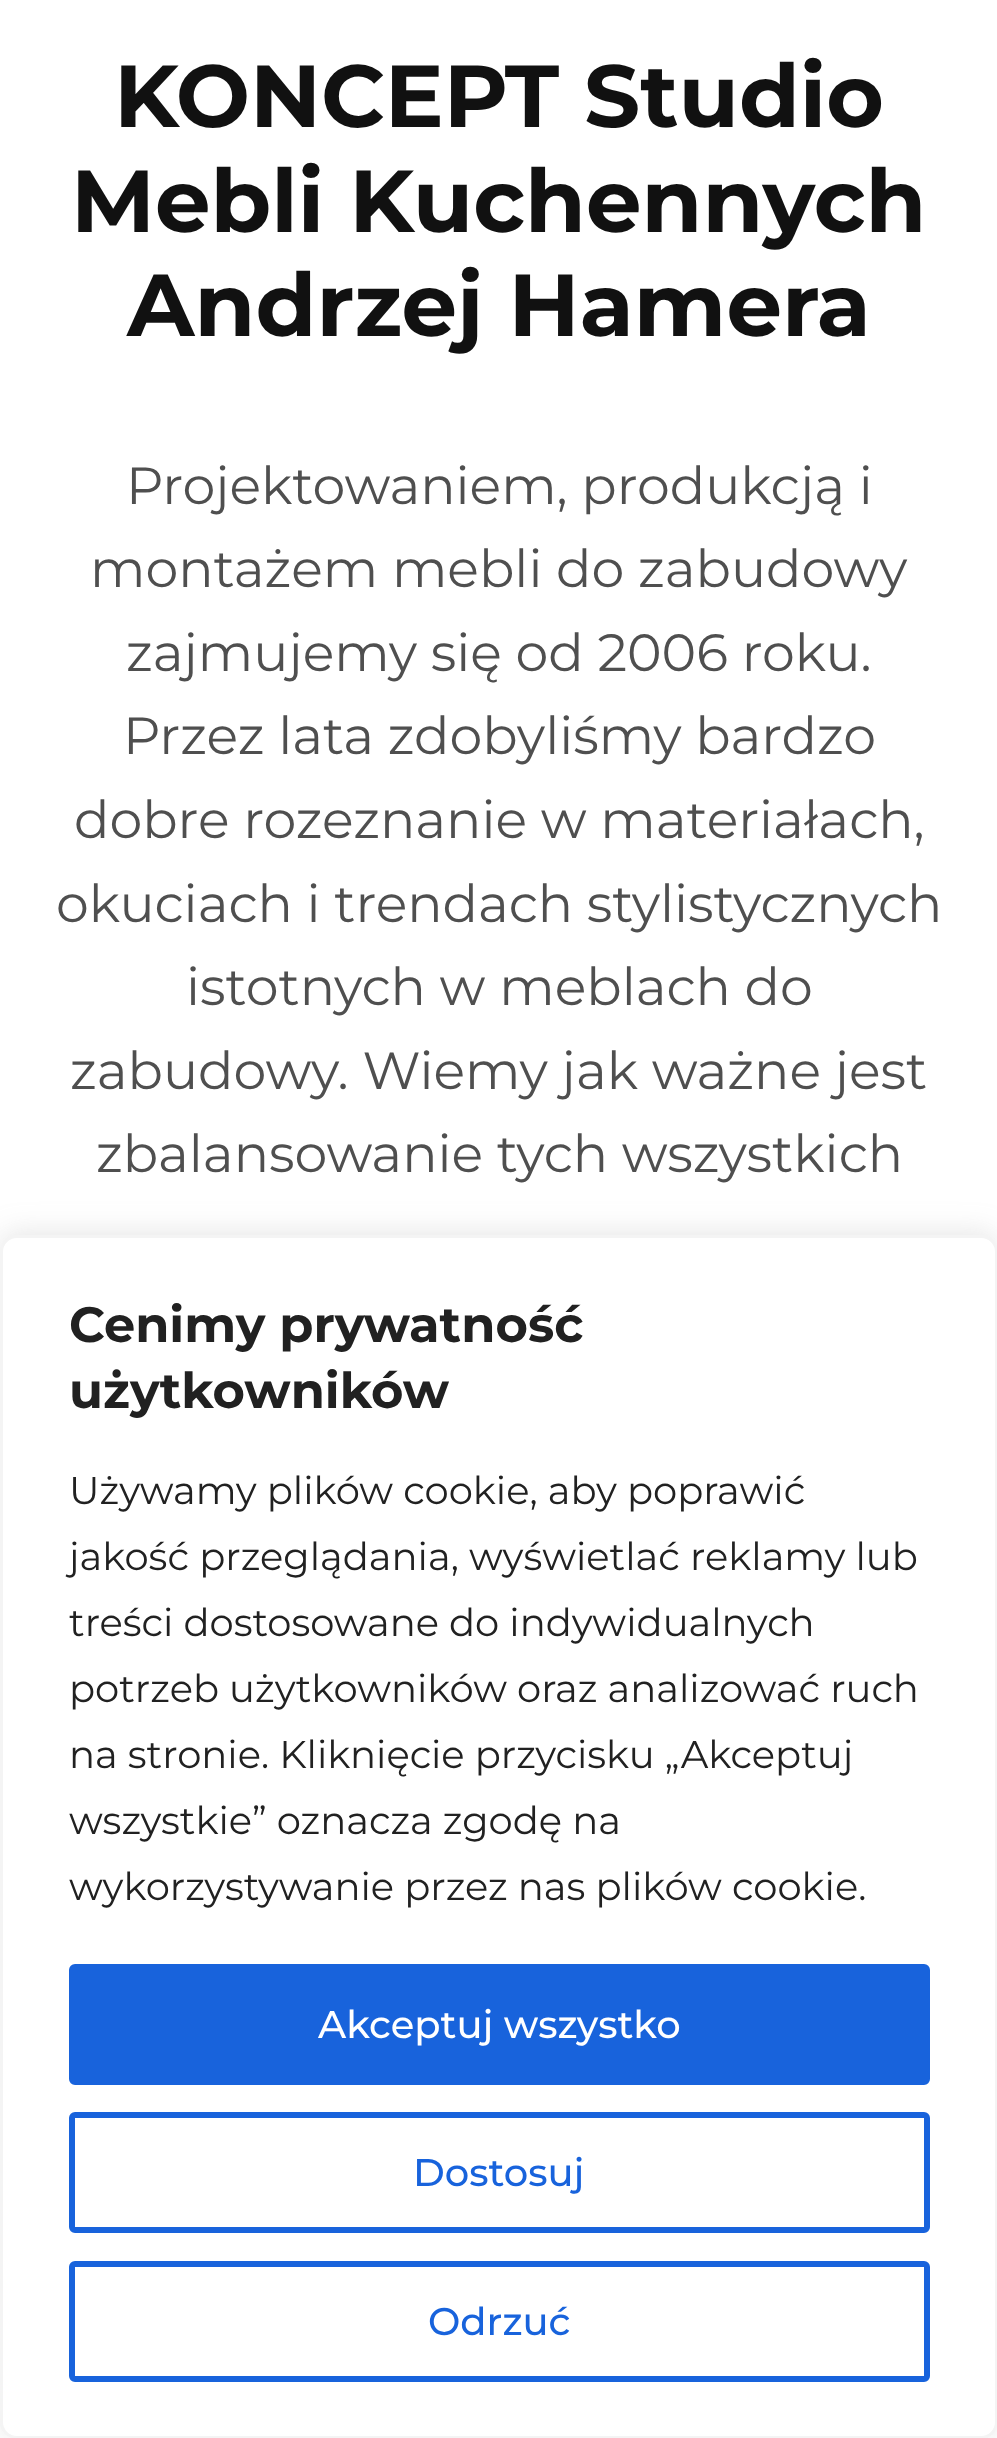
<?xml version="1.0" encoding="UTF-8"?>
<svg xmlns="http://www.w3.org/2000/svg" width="997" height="2438">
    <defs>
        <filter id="blur1" x="-50%" y="-200%" width="200%" height="500%"><feGaussianBlur stdDeviation="14"/></filter>
    </defs>
    <rect width="100%" height="100%" fill="#FFFFFF"/>
    <text x="114" y="127" font-family="Montserrat" font-size="88" font-weight="700" fill="#111111">KONCEPT Studio</text>
    <text x="71" y="232" font-family="Montserrat" font-size="88" font-weight="700" fill="#111111">Mebli Kuchennych</text>
    <text x="127" y="336" font-family="Montserrat" font-size="88" font-weight="700" fill="#111111">Andrzej Hamera</text>
    <text x="126" y="504" font-family="Montserrat" font-size="52.25" fill="#4F4F4F">Projektowaniem, produkcją i</text>
    <text x="90" y="587" font-family="Montserrat" font-size="52.25" fill="#4F4F4F">montażem mebli do zabudowy</text>
    <text x="126" y="671" font-family="Montserrat" font-size="52.25" fill="#4F4F4F">zajmujemy się od 2006 roku.</text>
    <text x="123" y="754" font-family="Montserrat" font-size="52.25" fill="#4F4F4F">Przez lata zdobyliśmy bardzo</text>
    <text x="74" y="838" font-family="Montserrat" font-size="52.25" fill="#4F4F4F">dobre rozeznanie w materiałach,</text>
    <text x="56" y="922" font-family="Montserrat" font-size="52.25" fill="#4F4F4F">okuciach i trendach stylistycznych</text>
    <text x="186" y="1005" font-family="Montserrat" font-size="52.25" fill="#4F4F4F">istotnych w meblach do</text>
    <text x="70" y="1089" font-family="Montserrat" font-size="52.25" fill="#4F4F4F">zabudowy. Wiemy jak ważne jest</text>
    <text x="96" y="1172" font-family="Montserrat" font-size="52.25" fill="#4F4F4F">zbalansowanie tych wszystkich</text>
    <rect x="0" y="1232" width="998" height="1205" rx="17" fill="#ACABAB" fill-opacity="0.3" filter="url(#blur1)"/>
    <rect x="1.5" y="1236.5" width="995" height="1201" rx="15.5" fill="#FFFFFF" stroke="#F4F4F4" stroke-width="3"/>
    <text font-family="Montserrat" font-size="49.5" font-weight="700" fill="#212121">
        <tspan x="69" y="1342">Cenimy prywatność</tspan>
        <tspan x="69" y="1408">użytkowników</tspan>
    </text>
    <text font-family="Montserrat" font-size="38.5" fill="#212121">
        <tspan x="69" y="1504">Używamy plików cookie, aby poprawić</tspan>
        <tspan x="69" y="1570">jakość przeglądania, wyświetlać reklamy lub</tspan>
        <tspan x="69" y="1636">treści dostosowane do indywidualnych</tspan>
        <tspan x="69" y="1702">potrzeb użytkowników oraz analizować ruch</tspan>
        <tspan x="69" y="1768">na stronie. Kliknięcie przycisku „Akceptuj</tspan>
        <tspan x="69" y="1834">wszystkie” oznacza zgodę na</tspan>
        <tspan x="69" y="1900">wykorzystywanie przez nas plików cookie.</tspan>
    </text>
    <rect x="72" y="1967" width="855" height="115" rx="3" fill="#1863DC" stroke="#1863DC" stroke-width="6"/>
    <text x="318" y="2038" font-family="Montserrat" font-size="38.5" font-weight="500" fill="#FFFFFF">Akceptuj wszystko</text>
    <rect x="72" y="2115" width="855" height="115" rx="3" fill="none" stroke="#1863DC" stroke-width="6"/>
    <text x="413" y="2186" font-family="Montserrat" font-size="38.5" font-weight="500" fill="#1863DC">Dostosuj</text>
    <rect x="72" y="2264" width="855" height="115" rx="3" fill="none" stroke="#1863DC" stroke-width="6"/>
    <text x="428" y="2335" font-family="Montserrat" font-size="38.5" font-weight="500" fill="#1863DC">Odrzuć</text>
</svg>
